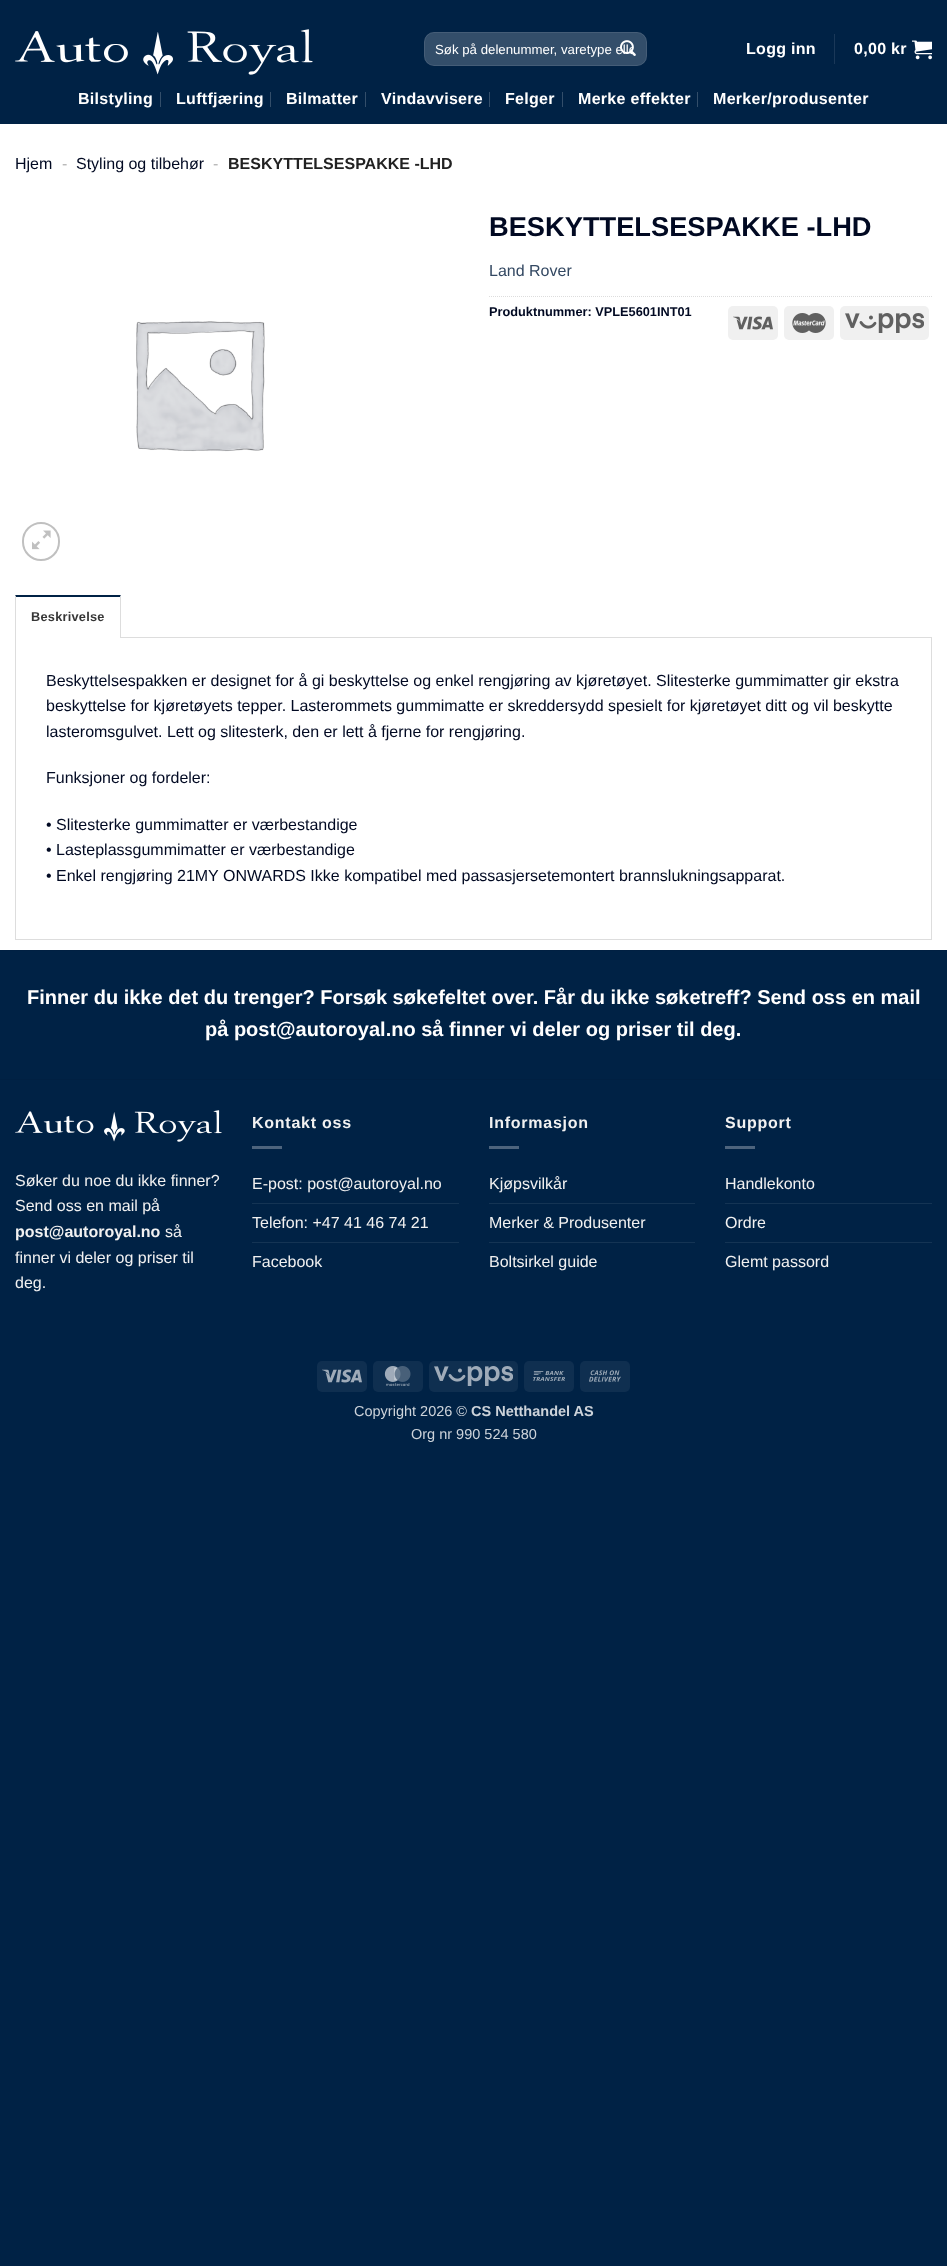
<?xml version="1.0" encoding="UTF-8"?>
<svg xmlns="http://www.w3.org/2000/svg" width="947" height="2266">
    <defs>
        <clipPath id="clip1"><rect x="435" y="42" width="197" height="15"/></clipPath>
    </defs>
    <rect width="100%" height="100%" fill="#002245"/>
    <rect x="0" y="124" width="947" height="826" fill="#FFFFFF"/>
    <image x="15" y="29" width="298" height="46" href="img_01.png"/>
    <rect x="424" y="32" width="223" height="34" rx="10" fill="#334E6A"/>
    <rect x="424.5" y="32.5" width="222" height="33" rx="9.5" fill="none" stroke="#FFFFFF" stroke-opacity="0.09"/>
    <g clip-path="url(#clip1)">
        <text x="435" y="54" font-family="Liberation Sans" font-size="13.25" fill="#FFFFFF">Søk på delenummer, varetype elle</text>
    </g>
    <image x="620" y="40" width="16" height="16" href="img_02.png"/>
    <text x="746" y="54" font-family="Liberation Sans" font-size="16" font-weight="700" letter-spacing="0.3" fill="#FFFFFF">Logg inn</text>
    <rect x="834" y="34" width="1" height="30" fill="#1A3858"/>
    <text x="854" y="54" font-family="Liberation Sans" font-size="16" font-weight="700" letter-spacing="0.3" fill="#FFFFFF">0,00 kr</text>
    <image x="912" y="40" width="20" height="20" href="img_03.png"/>
    <text x="78" y="104" font-family="Liberation Sans" font-size="16" font-weight="700" letter-spacing="0.3" fill="#FFFFFF">Bilstyling</text>
    <rect x="160" y="92" width="1" height="15" fill="#334E6A"/>
    <text x="176" y="104" font-family="Liberation Sans" font-size="16" font-weight="700" letter-spacing="0.3" fill="#FFFFFF">Luftfjæring</text>
    <rect x="270" y="92" width="1" height="15" fill="#334E6A"/>
    <text x="286" y="104" font-family="Liberation Sans" font-size="16" font-weight="700" letter-spacing="0.3" fill="#FFFFFF">Bilmatter</text>
    <rect x="365" y="92" width="1" height="15" fill="#334E6A"/>
    <text x="381" y="104" font-family="Liberation Sans" font-size="16" font-weight="700" letter-spacing="0.3" fill="#FFFFFF">Vindavvisere</text>
    <rect x="489" y="92" width="1" height="15" fill="#334E6A"/>
    <text x="505" y="104" font-family="Liberation Sans" font-size="16" font-weight="700" letter-spacing="0.3" fill="#FFFFFF">Felger</text>
    <rect x="562" y="92" width="1" height="15" fill="#334E6A"/>
    <text x="578" y="104" font-family="Liberation Sans" font-size="16" font-weight="700" letter-spacing="0.3" fill="#FFFFFF">Merke effekter</text>
    <rect x="697" y="92" width="1" height="15" fill="#334E6A"/>
    <text x="713" y="104" font-family="Liberation Sans" font-size="16" font-weight="700" letter-spacing="0.3" fill="#FFFFFF">Merker/produsenter</text>
    <text x="15" y="169" font-family="Liberation Sans" font-size="16" fill="#010922">Hjem</text>
    <text x="62" y="169" font-family="Liberation Sans" font-size="16" fill="#B2B2B2">-</text>
    <text x="76" y="169" font-family="Liberation Sans" font-size="16" fill="#010922">Styling og tilbehør</text>
    <text x="213" y="169" font-family="Liberation Sans" font-size="16" fill="#B2B2B2">-</text>
    <text x="228" y="169" font-family="Liberation Sans" font-size="16" font-weight="700" fill="#222222">BESKYTTELSESPAKKE -LHD</text>
    <text x="489" y="236" font-family="Liberation Sans" font-size="27.25" font-weight="700" fill="#010922">BESKYTTELSESPAKKE -LHD</text>
    <text x="489" y="276" font-family="Liberation Sans" font-size="16" fill="#334862">Land Rover</text>
    <path d="M 489 296.5 H 932" fill="none" stroke="#DDDDDD" stroke-dasharray="1 1"/>
    <text x="489" y="316" font-family="Liberation Sans" font-size="12.75" font-weight="700" fill="#010922">Produktnummer: VPLE5601INT01</text>
    <rect x="728" y="306" width="50" height="34" rx="5" fill="#F0F0F0"/>
    <image x="733" y="316" width="40" height="14" href="img_04.png"/>
    <rect x="784" y="306" width="50" height="34" rx="5" fill="#F0F0F0"/>
    <image x="792" y="313" width="34" height="20" href="img_05.png"/>
    <rect x="840" y="306" width="89" height="34" rx="5" fill="#F0F0F0"/>
    <image x="845" y="313" width="79" height="20" href="img_06.png"/>
    <image x="136" y="321" width="129" height="131" href="img_07.png"/>
    <rect x="23" y="523" width="36" height="37" rx="18" fill="none" stroke="#C0C0C0" stroke-width="2"/>
    <image x="32" y="530" width="19" height="20" href="img_08.png"/>
    <rect x="15.5" y="637.5" width="916" height="302" fill="none" stroke="#DDDDDD"/>
    <rect x="15" y="637" width="106" height="1" fill="#FFFFFF"/>
    <path d="M 15 595 H 121 L 120 597 H 16 Z" fill="#002245"/>
    <path d="M 121 595 V 638 H 120 V 597 Z" fill="#DDDDDD"/>
    <path d="M 15 638 V 595 L 16 597 V 638 Z" fill="#DDDDDD"/>
    <text x="31" y="621" font-family="Liberation Sans" font-size="12.75" font-weight="700" letter-spacing="0.25" fill="#363636">Beskrivelse</text>
    <text font-family="Liberation Sans" font-size="16" fill="#010922">
        <tspan x="46" y="686">Beskyttelsespakken er designet for å gi beskyttelse og enkel rengjøring av kjøretøyet. Slitesterke gummimatter gir ekstra</tspan>
        <tspan x="46" y="711">beskyttelse for kjøretøyets tepper. Lasterommets gummimatte er skreddersydd spesielt for kjøretøyet ditt og vil beskytte</tspan>
        <tspan x="46" y="737">lasteromsgulvet. Lett og slitesterk, den er lett å fjerne for rengjøring.</tspan>
    </text>
    <text x="46" y="783" font-family="Liberation Sans" font-size="16" fill="#010922">Funksjoner og fordeler:</text>
    <text font-family="Liberation Sans" font-size="16" fill="#010922">
        <tspan x="46" y="830">• Slitesterke gummimatter er værbestandige</tspan>
        <tspan x="46" y="855">• Lasteplassgummimatter er værbestandige</tspan>
        <tspan x="46" y="881">• Enkel rengjøring 21MY ONWARDS Ikke kompatibel med passasjersetemontert brannslukningsapparat.</tspan>
    </text>
    <rect x="0" y="950" width="947" height="1" fill="#002042"/>
    <text x="27" y="1004" font-family="Liberation Sans" font-size="20" font-weight="700" fill="#FFFFFF">Finner du ikke det du trenger? Forsøk søkefeltet over. Får du ikke søketreff? Send oss en mail</text>
    <text x="205" y="1036" font-family="Liberation Sans" font-size="20" font-weight="700" fill="#FFFFFF">på post@autoroyal.no så finner vi deler og priser til deg.</text>
    <rect x="0" y="1079" width="947" height="1" fill="#002042"/>
    <image x="15" y="1110" width="207" height="32" href="img_09.png"/>
    <text font-family="Liberation Sans" font-size="16" fill="#F1F1F1">
        <tspan x="15" y="1186">Søker du noe du ikke finner?</tspan>
        <tspan x="15" y="1211">Send oss en mail på</tspan>
    </text>
    <text x="15" y="1237" font-family="Liberation Sans" font-size="16" font-weight="700" fill="#F1F1F1">post@autoroyal.no</text>
    <text x="165" y="1237" font-family="Liberation Sans" font-size="16" fill="#F1F1F1">så</text>
    <text font-family="Liberation Sans" font-size="16" fill="#F1F1F1">
        <tspan x="15" y="1263">finner vi deler og priser til</tspan>
        <tspan x="15" y="1288">deg.</tspan>
    </text>
    <text x="252" y="1128" font-family="Liberation Sans" font-size="16" font-weight="700" letter-spacing="0.75" fill="#F1F1F1">Kontakt oss</text>
    <rect x="252" y="1146" width="30" height="3" fill="#4D647D"/>
    <text x="252" y="1189" font-family="Liberation Sans" font-size="16" fill="#F1F1F1">E-post: post@autoroyal.no</text>
    <rect x="252" y="1203" width="207" height="1" fill="#143454"/>
    <text x="252" y="1228" font-family="Liberation Sans" font-size="16" fill="#F1F1F1">Telefon: +47 41 46 74 21</text>
    <rect x="252" y="1242" width="207" height="1" fill="#143454"/>
    <text x="252" y="1267" font-family="Liberation Sans" font-size="16" fill="#F1F1F1">Facebook</text>
    <text x="489" y="1128" font-family="Liberation Sans" font-size="16" font-weight="700" letter-spacing="0.75" fill="#F1F1F1">Informasjon</text>
    <rect x="489" y="1146" width="30" height="3" fill="#4D647D"/>
    <text x="489" y="1189" font-family="Liberation Sans" font-size="16" fill="#F1F1F1">Kjøpsvilkår</text>
    <rect x="489" y="1203" width="206" height="1" fill="#143454"/>
    <text x="489" y="1228" font-family="Liberation Sans" font-size="16" fill="#F1F1F1">Merker &amp; Produsenter</text>
    <rect x="489" y="1242" width="206" height="1" fill="#143454"/>
    <text x="489" y="1267" font-family="Liberation Sans" font-size="16" fill="#F1F1F1">Boltsirkel guide</text>
    <text x="725" y="1128" font-family="Liberation Sans" font-size="16" font-weight="700" letter-spacing="0.75" fill="#F1F1F1">Support</text>
    <rect x="725" y="1146" width="30" height="3" fill="#4D647D"/>
    <text x="725" y="1189" font-family="Liberation Sans" font-size="16" fill="#F1F1F1">Handlekonto</text>
    <rect x="725" y="1203" width="207" height="1" fill="#143454"/>
    <text x="725" y="1228" font-family="Liberation Sans" font-size="16" fill="#F1F1F1">Ordre</text>
    <rect x="725" y="1242" width="207" height="1" fill="#143454"/>
    <text x="725" y="1267" font-family="Liberation Sans" font-size="16" fill="#F1F1F1">Glemt passord</text>
    <rect x="317" y="1361" width="50" height="31" rx="5" fill="#0F2F50"/>
    <image x="322" y="1369" width="40" height="14" href="img_10.png"/>
    <rect x="373" y="1361" width="50" height="31" rx="5" fill="#0F2F50"/>
    <image x="384" y="1366" width="27" height="20" href="img_11.png"/>
    <rect x="429" y="1361" width="89" height="31" rx="5" fill="#0F2F50"/>
    <image x="434" y="1366" width="79" height="20" href="img_12.png"/>
    <rect x="524" y="1361" width="50" height="31" rx="5" fill="#0F2F50"/>
    <image x="533" y="1371" width="32" height="10" href="img_13.png"/>
    <rect x="580" y="1361" width="50" height="31" rx="5" fill="#0F2F50"/>
    <image x="589" y="1370" width="32" height="12" href="img_14.png"/>
    <text x="354" y="1416" font-family="Liberation Sans" font-size="14.5" fill="#CCD3DA">Copyright 2026 ©</text>
    <text x="471" y="1416" font-family="Liberation Sans" font-size="14.5" font-weight="700" fill="#CCD3DA">CS Netthandel AS</text>
    <text x="411" y="1439" font-family="Liberation Sans" font-size="14.5" fill="#CCD3DA">Org nr 990 524 580</text>
</svg>
